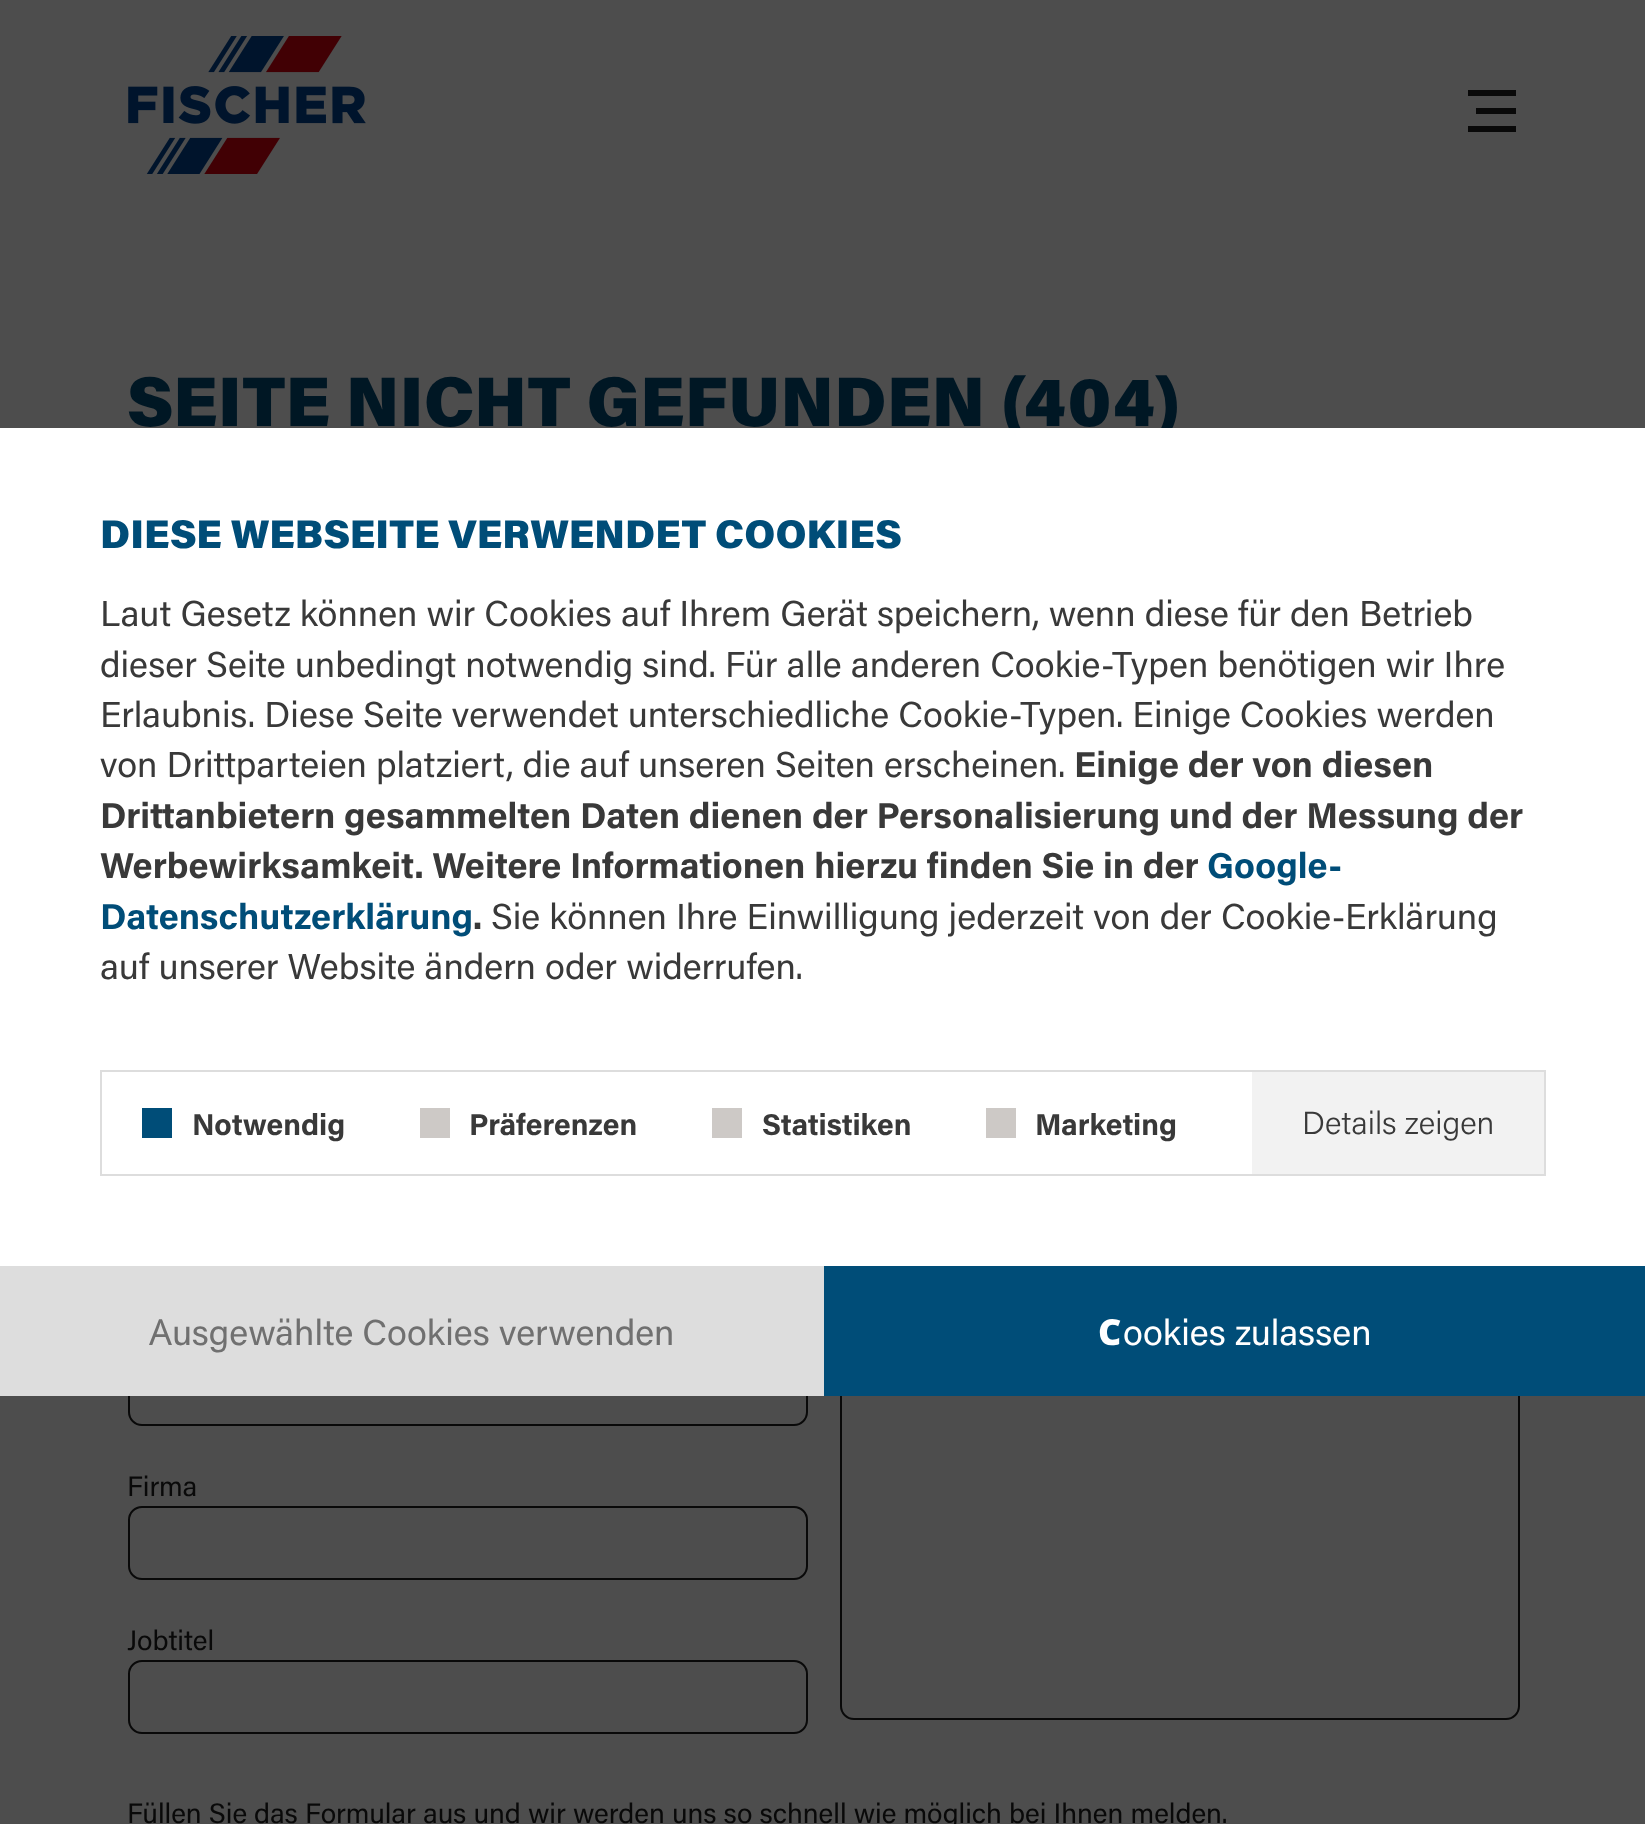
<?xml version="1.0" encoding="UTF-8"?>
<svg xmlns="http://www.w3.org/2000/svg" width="1645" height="1824">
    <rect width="100%" height="100%" fill="#4D4D4D"/>
    <image x="128" y="36" width="238" height="138" href="img_01.png"/>
    <rect x="1468" y="90" width="48" height="6" fill="#090909"/>
    <rect x="1476" y="108" width="40" height="6" fill="#090909"/>
    <rect x="1468" y="126" width="48" height="6" fill="#090909"/>
    <text x="127" y="426" font-family="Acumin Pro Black" font-size="70" font-weight="900" fill="#001724">SEITE NICHT GEFUNDEN (404)</text>
    <rect x="129" y="1355" width="678" height="70" rx="13" fill="none" stroke="#090909" stroke-width="2"/>
    <text x="127" y="1496" font-family="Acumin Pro" font-size="28" fill="#090909">Firma</text>
    <rect x="129" y="1507" width="678" height="72" rx="13" fill="none" stroke="#090909" stroke-width="2"/>
    <text x="127" y="1650" font-family="Acumin Pro" font-size="28" fill="#090909">Jobtitel</text>
    <rect x="129" y="1661" width="678" height="72" rx="13" fill="none" stroke="#090909" stroke-width="2"/>
    <rect x="841" y="1201" width="678" height="518" rx="13" fill="none" stroke="#090909" stroke-width="2"/>
    <text x="127" y="1823" font-family="Acumin Pro" font-size="28" fill="#090909">Füllen Sie das Formular aus und wir werden uns so schnell wie möglich bei Ihnen melden.</text>
    <rect x="0" y="428" width="1645" height="838" fill="#FFFFFF"/>
    <text x="100" y="548" font-family="Acumin Pro Black" font-size="40" font-weight="900" fill="#004D78">DIESE WEBSEITE VERWENDET COOKIES</text>
    <text font-family="Acumin Pro" font-size="36" fill="#393939">
        <tspan x="100" y="626">Laut Gesetz können wir Cookies auf Ihrem Gerät speichern, wenn diese für den Betrieb</tspan>
        <tspan x="100" y="677">dieser Seite unbedingt notwendig sind. Für alle anderen Cookie-Typen benötigen wir Ihre</tspan>
        <tspan x="100" y="727">Erlaubnis. Diese Seite verwendet unterschiedliche Cookie-Typen. Einige Cookies werden</tspan>
        <tspan x="100" y="777">von Drittparteien platziert, die auf unseren Seiten erscheinen.</tspan>
    </text>
    <text x="1074" y="777" font-family="Acumin Pro" font-size="36" font-weight="700" fill="#393939">Einige der von diesen</text>
    <text font-family="Acumin Pro" font-size="36" font-weight="700" fill="#393939">
        <tspan x="100" y="828">Drittanbietern gesammelten Daten dienen der Personalisierung und der Messung der</tspan>
        <tspan x="100" y="878">Werbewirksamkeit. Weitere Informationen hierzu finden Sie in der</tspan>
    </text>
    <text x="1207" y="878" font-family="Acumin Pro" font-size="36" font-weight="700" fill="#004D78">Google-</text>
    <text x="100" y="929" font-family="Acumin Pro" font-size="36" font-weight="700" fill="#004D78">Datenschutzerklärung</text>
    <text x="473" y="929" font-family="Acumin Pro" font-size="36" font-weight="700" fill="#393939">.</text>
    <text x="491" y="929" font-family="Acumin Pro" font-size="36" fill="#393939">Sie können Ihre Einwilligung jederzeit von der Cookie-Erklärung</text>
    <text x="100" y="979" font-family="Acumin Pro" font-size="36" fill="#393939">auf unserer Website ändern oder widerrufen.</text>
    <rect x="101" y="1071" width="1444" height="104" fill="none" stroke="#DDDDDD" stroke-width="2"/>
    <rect x="142" y="1108" width="30" height="30" fill="#004D78"/>
    <text x="192" y="1135" font-family="Acumin Pro" font-size="30" font-weight="700" fill="#393939">Notwendig</text>
    <rect x="420" y="1108" width="30" height="30" fill="#CDC9C6"/>
    <text x="469" y="1135" font-family="Acumin Pro" font-size="30" font-weight="700" fill="#393939">Präferenzen</text>
    <rect x="712" y="1108" width="30" height="30" fill="#CDC9C6"/>
    <text x="762" y="1135" font-family="Acumin Pro" font-size="30" font-weight="700" fill="#393939">Statistiken</text>
    <rect x="986" y="1108" width="30" height="30" fill="#CDC9C6"/>
    <text x="1035" y="1135" font-family="Acumin Pro" font-size="30" font-weight="700" fill="#393939">Marketing</text>
    <rect x="1252" y="1072" width="292" height="102" fill="#F2F2F2"/>
    <text x="1302" y="1134" font-family="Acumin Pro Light" font-size="32" font-weight="300" fill="#393939">Details zeigen</text>
    <rect x="0" y="1266" width="824" height="130" fill="#DDDDDD"/>
    <text x="149" y="1345" font-family="Noto Sans" font-size="36" fill="#707070">A</text>
    <text x="172" y="1345" font-family="Acumin Pro" font-size="36" fill="#707070">usgewählte Cookies verwenden</text>
    <rect x="824" y="1266" width="821" height="130" fill="#004D78"/>
    <text x="1098" y="1345" font-family="Noto Sans" font-size="36" font-weight="900" fill="#FFFFFF">C</text>
    <text x="1123" y="1345" font-family="Acumin Pro" font-size="36" fill="#FFFFFF">ookies zulassen</text>
</svg>
